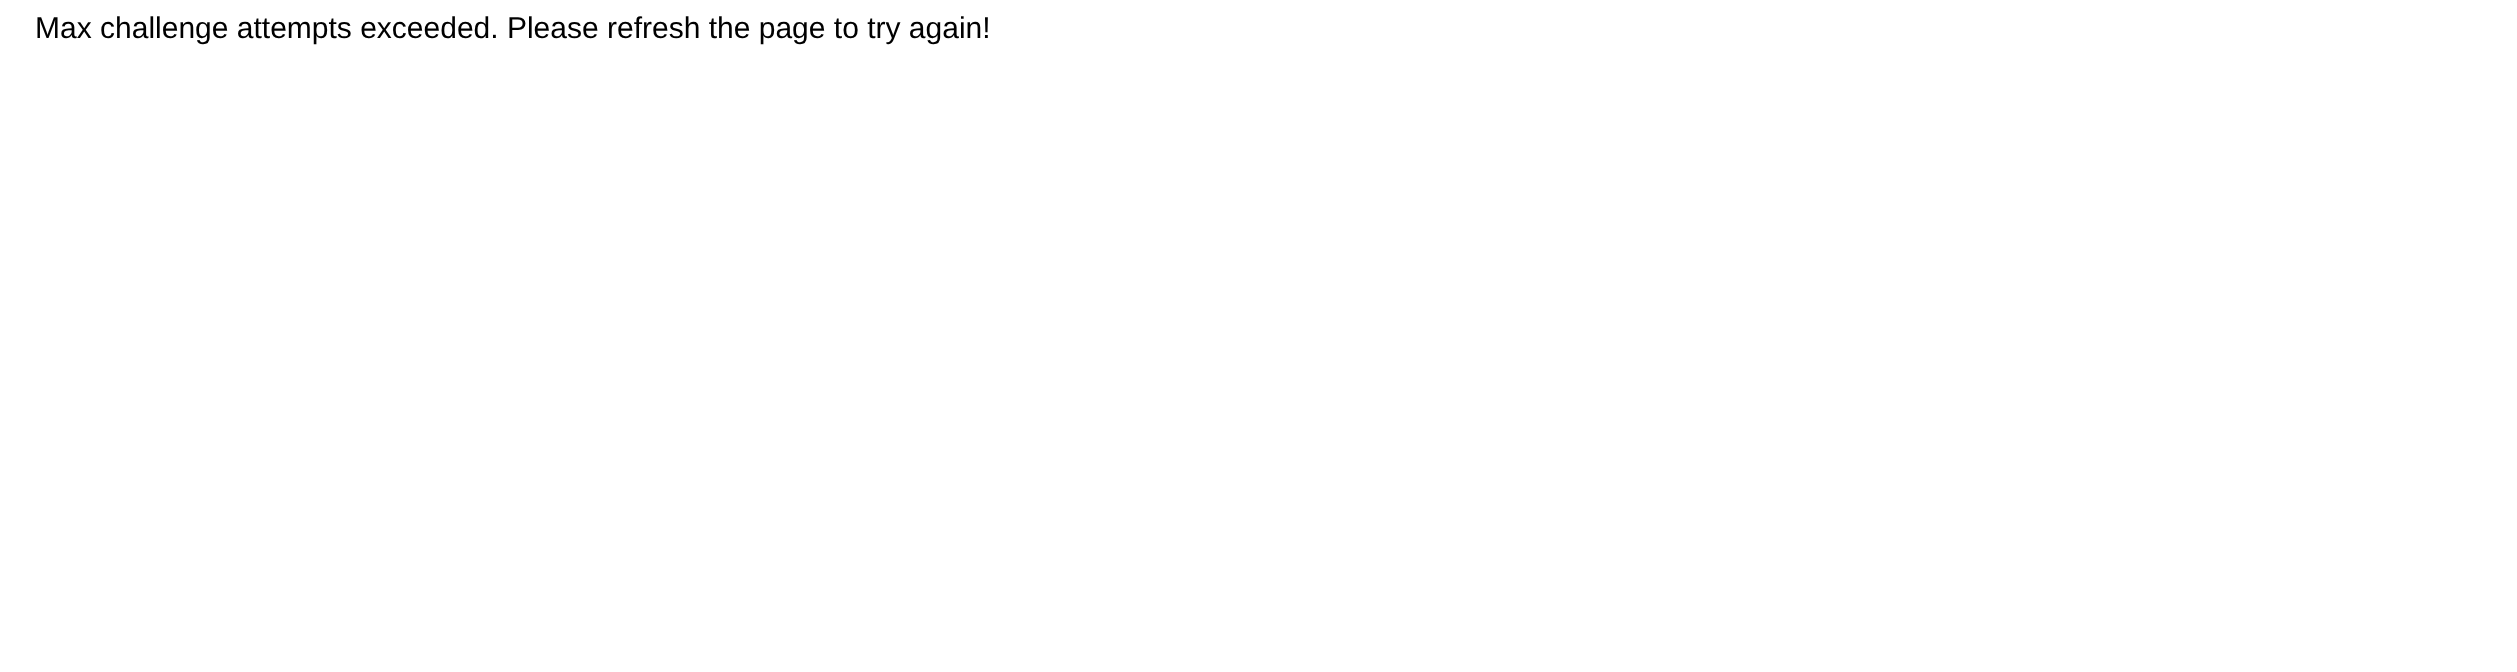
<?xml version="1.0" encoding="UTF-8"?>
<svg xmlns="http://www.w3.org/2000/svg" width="2517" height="672">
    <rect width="100%" height="100%" fill="#FFFFFF"/>
    <text x="35" y="38" font-family="Liberation Sans" font-size="30" fill="#000000">Max challenge attempts exceeded. Please refresh the page to try again!</text>
</svg>
